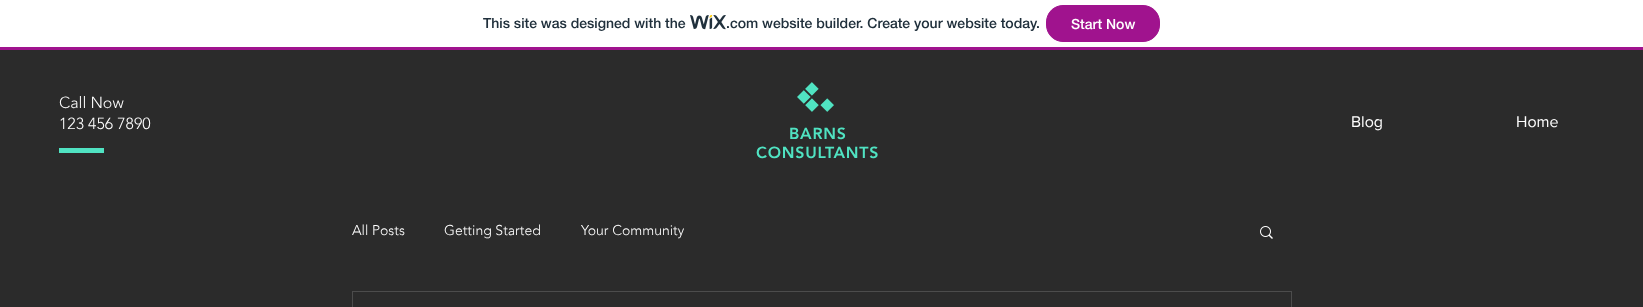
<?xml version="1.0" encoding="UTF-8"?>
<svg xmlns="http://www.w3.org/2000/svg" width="1643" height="307">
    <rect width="100%" height="100%" fill="#FFFFFF"/>
    <rect x="0" y="47" width="1643" height="3" fill="#A0138E"/>
    <text x="483" y="28" font-family="'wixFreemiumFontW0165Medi'" font-size="14" font-weight="500" fill="#20303C">This site was designed with the</text>
    <image x="690" y="15" width="36" height="15" href="img_01.png"/>
    <text x="726" y="28" font-family="'wixFreemiumFontW0165Medi'" font-size="14" font-weight="500" fill="#20303C">.com website builder. Create your website today.</text>
    <rect x="1046.5" y="5.5" width="113" height="36" rx="16.5" fill="#A0138E" stroke="#A0138E"/>
    <text x="1071" y="29" font-family="'wixFreemiumFontW0165Medi'" font-size="14" font-weight="500" fill="#FFFFFF">Start Now</text>
    <rect x="0" y="50" width="1643" height="257" fill="#2B2B2B"/>
    <text font-family="'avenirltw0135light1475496'" font-size="16" font-weight="300" fill="#FFFFFF">
        <tspan x="59" y="108">Call Now</tspan>
        <tspan x="59" y="129">123 456 7890</tspan>
    </text>
    <rect x="59" y="148" width="45" height="5" fill="#50E3C2"/>
    <text x="1351" y="127" font-family="'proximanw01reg'" font-size="16" fill="#FFFFFF">Blog</text>
    <text x="1516" y="127" font-family="'proximanw01reg'" font-size="16" fill="#FFFFFF">Home</text>
    <image x="797" y="82" width="37" height="30" href="img_02.png"/>
    <text x="789" y="139" font-family="'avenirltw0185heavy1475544'" font-size="16" font-weight="900" letter-spacing="0.75" fill="#50E3C2">BARNS</text>
    <text x="756" y="158" font-family="'avenirltw0185heavy1475544'" font-size="16" font-weight="900" letter-spacing="0.75" fill="#50E3C2">CONSULTANTS</text>
    <text x="352" y="235" font-family="'avenirltw0135light1475496'" font-size="14" font-weight="300" fill="#FFFFFF">All Posts</text>
    <text x="444" y="235" font-family="'avenirltw0135light1475496'" font-size="14" font-weight="300" fill="#FFFFFF">Getting Started</text>
    <text x="581" y="235" font-family="'avenirltw0135light1475496'" font-size="14" font-weight="300" fill="#FFFFFF">Your Community</text>
    <image x="1260" y="226" width="13" height="13" href="img_03.png"/>
    <rect x="352.5" y="291.5" width="939" height="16" fill="none" stroke="#4C4C4C"/>
</svg>
